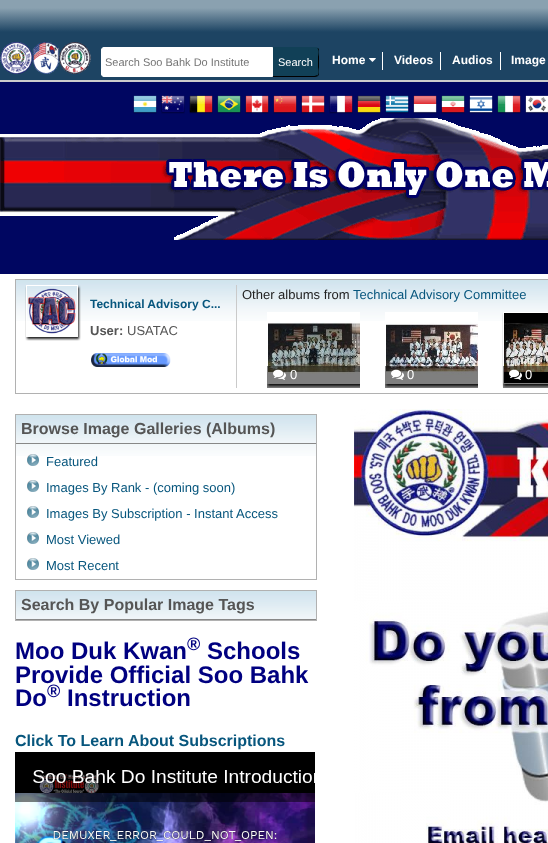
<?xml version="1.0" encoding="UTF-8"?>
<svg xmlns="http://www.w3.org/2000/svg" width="548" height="843">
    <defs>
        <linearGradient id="g1" gradientUnits="userSpaceOnUse" x1="495" y1="80" x2="495" y2="0"><stop offset="0.6" stop-color="#1D4463"/><stop offset="0.9" stop-color="#8AA1B0"/></linearGradient>
        <clipPath id="clip1"><path d="M 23 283 H 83 V 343 H 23 Z M 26 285 H 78 V 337 H 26 Z" clip-rule="evenodd"/></clipPath>
        <filter id="blur1" x="-50%" y="-200%" width="200%" height="500%"><feGaussianBlur stdDeviation="1"/></filter>
        <clipPath id="clip2"><rect x="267" y="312" width="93" height="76"/></clipPath>
        <clipPath id="clip3"><rect x="267" y="312" width="93" height="76"/></clipPath>
        <clipPath id="clip4"><rect x="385" y="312" width="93" height="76"/></clipPath>
        <clipPath id="clip5"><rect x="385" y="312" width="93" height="76"/></clipPath>
    </defs>
    <rect width="100%" height="100%" fill="#000661"/>
    <rect x="0" y="0" width="548" height="80" fill="url(#g1)"/>
    <rect x="0" y="80" width="548" height="2" fill="#CCCCCC"/>
    <image x="0" y="42" width="91" height="32" href="img_01.png"/>
    <path d="M 104 47.5 H 272.5 V 76.5 H 104 C 102.5 76.5 101.5 75.5 101.5 74 V 50 C 101.5 48.5 102.5 47.5 104 47.5 Z" fill="#FFFFFF" stroke="#FFFFFF"/>
    <text x="105" y="66" font-family="Liberation Sans" font-size="11" fill="#757575">Search Soo Bahk Do Institute</text>
    <path d="M 273 47 H 316 C 317.5 47 319 48.5 319 50 V 74 C 319 75.5 317.5 77 316 77 H 273 Z" fill="#114057"/>
    <path d="M 317.5 75.5 C 319.5 74 318.5 69 318 67 V 57 C 318.5 55 319.5 50 317.5 48.5 L 318 48 L 319 49.5 V 74.5 L 318 76 Z" fill="#000000"/>
    <path d="M 273 76 V 77 H 309 C 314 77 317 77 318 76 L 317 75 C 316 76 314 76 309 76 Z" fill="#000000"/>
    <text x="278" y="66" font-family="Liberation Sans" font-size="11" fill="#FFFFFF">Search</text>
    <rect x="382" y="52" width="1" height="18" fill="#FFFFFF"/>
    <text x="332" y="64" font-family="Liberation Sans" font-size="12" font-weight="700" fill="#FFFFFF">Home</text>
    <image x="369" y="58" width="7" height="4" href="img_02.png"/>
    <rect x="440" y="52" width="1" height="18" fill="#FFFFFF"/>
    <text x="394" y="64" font-family="Liberation Sans" font-size="12" font-weight="700" fill="#FFFFFF">Videos</text>
    <rect x="500" y="52" width="1" height="18" fill="#FFFFFF"/>
    <text x="452" y="64" font-family="Liberation Sans" font-size="12" font-weight="700" fill="#FFFFFF">Audios</text>
    <text x="511" y="64" font-family="Liberation Sans" font-size="12" font-weight="700" fill="#FFFFFF">Image</text>
    <image x="133" y="95" width="24" height="19" href="img_03.png"/>
    <image x="161" y="95" width="24" height="19" href="img_04.png"/>
    <image x="189" y="95" width="24" height="19" href="img_05.png"/>
    <image x="217" y="95" width="24" height="19" href="img_06.png"/>
    <image x="245" y="95" width="24" height="19" href="img_07.png"/>
    <image x="273" y="95" width="24" height="19" href="img_08.png"/>
    <image x="301" y="95" width="24" height="19" href="img_09.png"/>
    <image x="329" y="95" width="24" height="19" href="img_10.png"/>
    <image x="357" y="95" width="24" height="19" href="img_11.png"/>
    <image x="385" y="95" width="24" height="19" href="img_12.png"/>
    <image x="413" y="95" width="24" height="19" href="img_13.png"/>
    <image x="441" y="95" width="24" height="19" href="img_14.png"/>
    <image x="469" y="95" width="24" height="19" href="img_15.png"/>
    <image x="497" y="95" width="24" height="19" href="img_16.png"/>
    <image x="525" y="95" width="23" height="19" href="img_17.png"/>
    <image x="0" y="118" width="548" height="122" href="img_18.png"/>
    <rect x="0" y="274" width="548" height="569" fill="#FFFFFF"/>
    <image x="16" y="280" width="532" height="41" href="img_19.png"/>
    <rect x="15.5" y="279.5" width="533" height="114" fill="none" stroke="#B1B1B1"/>
    <g clip-path="url(#clip1)">
        <rect x="27" y="287" width="52" height="52" fill="#222222" filter="url(#blur1)"/>
    </g>
    <rect x="26.5" y="285.5" width="51" height="51" fill="none" stroke="#FFFFFF"/>
    <image x="28" y="288" width="48" height="46" href="img_20.png"/>
    <text x="90" y="308" font-family="Liberation Sans" font-size="12" font-weight="700" fill="#07567D">Technical Advisory C...</text>
    <text x="90" y="335" font-family="Liberation Sans" font-size="13" font-weight="700" fill="#555555">User:</text>
    <text x="127" y="335" font-family="Liberation Sans" font-size="13" fill="#555555">USATAC</text>
    <image x="91" y="353" width="80" height="14" href="img_21.png"/>
    <rect x="236" y="285" width="1" height="103" fill="#CACACA"/>
    <text x="242" y="299" font-family="Liberation Sans" font-size="13" fill="#222222">Other albums from</text>
    <text x="353" y="299" font-family="Liberation Sans" font-size="13" fill="#07567D">Technical Advisory Committee</text>
    <g clip-path="url(#clip2)">
        <rect x="268" y="314" width="95" height="72" fill="#222222" filter="url(#blur1)"/>
    </g>
    <g clip-path="url(#clip3)">
        <rect x="267.5" y="312.5" width="94" height="71" fill="none" stroke="#FFFFFF"/>
    </g>
    <image x="268" y="313" width="92" height="70" href="img_22.png"/>
    <rect x="267" y="366" width="93" height="22" fill="#000000" fill-opacity="0.5"/>
    <image x="273" y="369" width="13" height="11" href="img_23.png"/>
    <text x="290" y="379" font-family="Liberation Sans" font-size="13" fill="#FFFFFF">0</text>
    <g clip-path="url(#clip4)">
        <rect x="386" y="314" width="95" height="72" fill="#222222" filter="url(#blur1)"/>
    </g>
    <g clip-path="url(#clip5)">
        <rect x="385.5" y="312.5" width="94" height="71" fill="none" stroke="#FFFFFF"/>
    </g>
    <image x="386" y="313" width="92" height="70" href="img_24.png"/>
    <rect x="385" y="366" width="93" height="22" fill="#000000" fill-opacity="0.5"/>
    <image x="391" y="369" width="13" height="11" href="img_25.png"/>
    <text x="407" y="379" font-family="Liberation Sans" font-size="13" fill="#FFFFFF">0</text>
    <rect x="504" y="314" width="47" height="72" fill="#222222" filter="url(#blur1)"/>
    <rect x="503.5" y="312.5" width="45" height="71" fill="#000000" stroke="#FFFFFF"/>
    <image x="504" y="323" width="44" height="49" href="img_26.png"/>
    <rect x="503" y="366" width="45" height="22" fill="#000000" fill-opacity="0.5"/>
    <image x="509" y="369" width="13" height="11" href="img_27.png"/>
    <text x="525" y="379" font-family="Liberation Sans" font-size="13" fill="#FFFFFF">0</text>
    <image x="16" y="415" width="300" height="41" href="img_28.png"/>
    <rect x="15.5" y="414.5" width="301" height="165" fill="none" stroke="#B1B1B1"/>
    <rect x="16" y="443" width="300" height="1" fill="#888888"/>
    <text x="21" y="434" font-family="Liberation Sans" font-size="16" font-weight="700" fill="#555555">Browse Image Galleries (Albums)</text>
    <image x="27" y="454" width="12" height="12" href="img_29.png"/>
    <text x="46" y="466" font-family="Liberation Sans" font-size="13" fill="#07567D">Featured</text>
    <image x="27" y="480" width="12" height="12" href="img_30.png"/>
    <text x="46" y="492" font-family="Liberation Sans" font-size="13" fill="#07567D">Images By Rank - (coming soon)</text>
    <image x="27" y="506" width="12" height="12" href="img_30.png"/>
    <text x="46" y="518" font-family="Liberation Sans" font-size="13" fill="#07567D">Images By Subscription - Instant Access</text>
    <image x="27" y="532" width="12" height="12" href="img_30.png"/>
    <text x="46" y="544" font-family="Liberation Sans" font-size="13" fill="#07567D">Most Viewed</text>
    <image x="27" y="558" width="12" height="12" href="img_30.png"/>
    <text x="46" y="570" font-family="Liberation Sans" font-size="13" fill="#07567D">Most Recent</text>
    <image x="16" y="591" width="300" height="28" href="img_31.png"/>
    <rect x="15.5" y="590.5" width="301" height="30" fill="none" stroke="#B1B1B1"/>
    <rect x="16" y="619" width="300" height="1" fill="#888888"/>
    <text x="21" y="610" font-family="Liberation Sans" font-size="16" font-weight="700" fill="#555555">Search By Popular Image Tags</text>
    <text x="15" y="659" font-family="Liberation Sans" font-size="24" font-weight="700" fill="#000080">Moo Duk Kwan</text>
    <text x="187" y="650" font-family="Liberation Sans" font-size="18" font-weight="700" fill="#000080">®</text>
    <text x="207" y="659" font-family="Liberation Sans" font-size="24" font-weight="700" fill="#000080">Schools</text>
    <text font-family="Liberation Sans" font-size="24" font-weight="700" fill="#000080">
        <tspan x="15" y="683">Provide Official Soo Bahk</tspan>
        <tspan x="15" y="706">Do</tspan>
    </text>
    <text x="47" y="697" font-family="Liberation Sans" font-size="18" font-weight="700" fill="#000080">®</text>
    <text x="67" y="706" font-family="Liberation Sans" font-size="24" font-weight="700" fill="#000080">Instruction</text>
    <text x="15" y="746" font-family="Liberation Sans" font-size="16" font-weight="700" fill="#07567D">Click To Learn About Subscriptions</text>
    <image x="15" y="752" width="300" height="91" href="img_32.png"/>
    <image x="354" y="409" width="194" height="434" href="img_33.png"/>
</svg>
